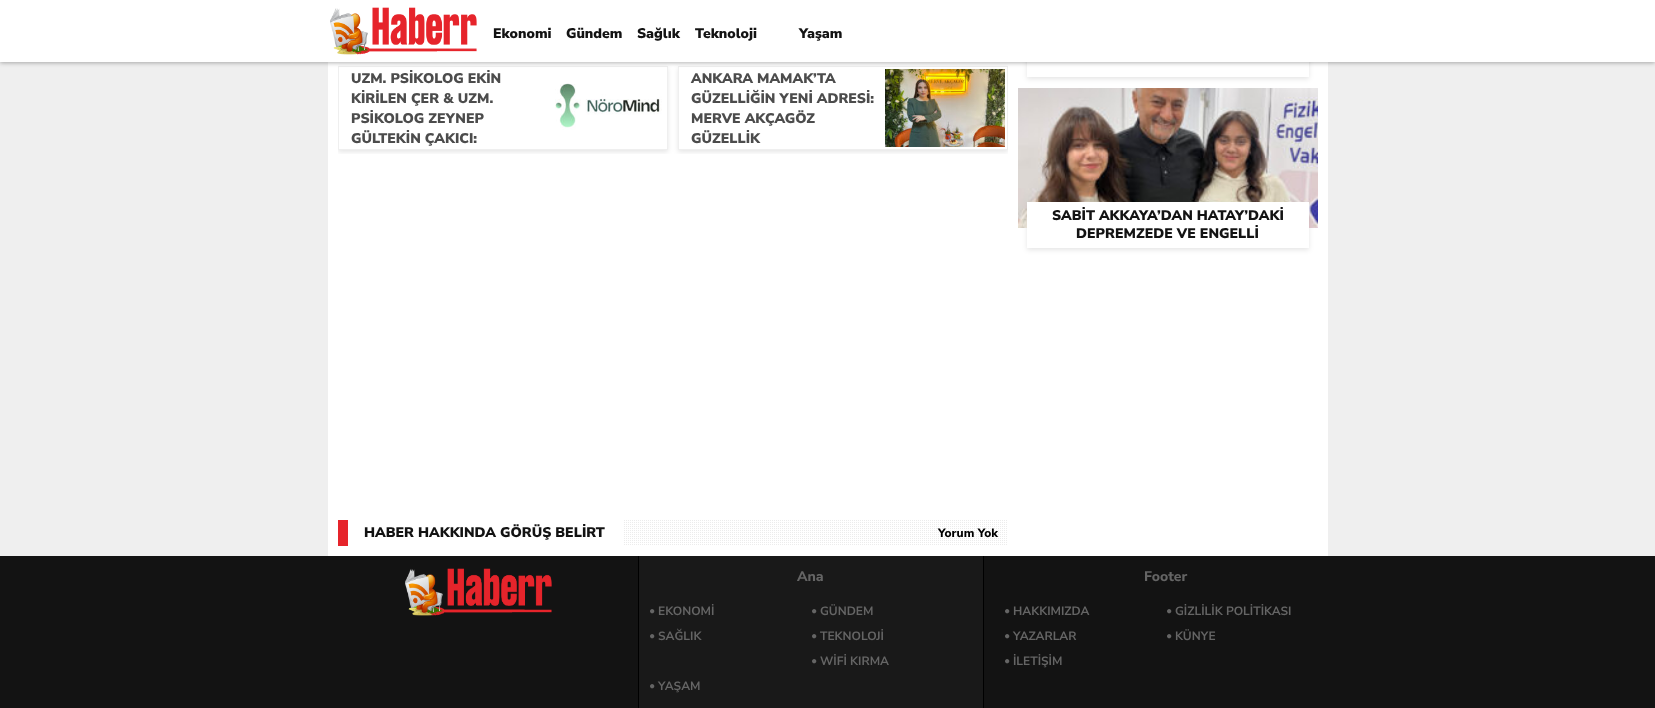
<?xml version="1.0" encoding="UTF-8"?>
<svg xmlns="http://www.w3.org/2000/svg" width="1655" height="708">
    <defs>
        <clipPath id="clip1"><rect x="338" y="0" width="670" height="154"/></clipPath>
        <clipPath id="clip2"><path d="M 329 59 H 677 V 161 H 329 Z M 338 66 H 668 V 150 H 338 Z" clip-rule="evenodd"/></clipPath>
        <filter id="blur1" x="-50%" y="-200%" width="200%" height="500%"><feGaussianBlur stdDeviation="2.5"/></filter>
        <clipPath id="clip3"><path d="M 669 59 H 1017 V 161 H 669 Z M 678 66 H 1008 V 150 H 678 Z" clip-rule="evenodd"/></clipPath>
        <filter id="blur2" x="-50%" y="-200%" width="200%" height="500%"><feGaussianBlur stdDeviation="2"/></filter>
    </defs>
    <rect width="100%" height="100%" fill="#EFEFEF"/>
    <rect x="328" y="62" width="1000" height="494" fill="#FFFFFF"/>
    <g clip-path="url(#clip1)">
        <g clip-path="url(#clip2)">
            <rect x="338" y="68" width="330" height="84" fill="#000000" fill-opacity="0.1" filter="url(#blur1)"/>
        </g>
    </g>
    <rect x="338.5" y="66.5" width="329" height="83" fill="none" stroke="#EFEFEF"/>
    <g clip-path="url(#clip1)">
        <g clip-path="url(#clip3)">
            <rect x="678" y="68" width="330" height="84" fill="#000000" fill-opacity="0.1" filter="url(#blur1)"/>
        </g>
    </g>
    <rect x="678.5" y="66.5" width="329" height="83" fill="none" stroke="#EFEFEF"/>
    <image x="885" y="69" width="120" height="78" href="img_03.png"/>
    <rect x="1027" y="33" width="282" height="46" fill="#000000" fill-opacity="0.1" filter="url(#blur1)"/>
    <rect x="1027" y="62" width="282" height="15" fill="#FFFFFF"/>
    <rect x="0" y="1" width="1655" height="62" fill="#000000" fill-opacity="0.3" filter="url(#blur2)"/>
    <rect x="0" y="0" width="1655" height="62" fill="#FFFFFF"/>
    <image x="330" y="7" width="147" height="48" href="img_01.png"/>
    <text x="493" y="38" font-family="Nunito Sans" font-size="14" font-weight="900" fill="#131313">Ekonomi</text>
    <text x="566" y="38" font-family="Nunito Sans" font-size="14" font-weight="900" fill="#131313">Gündem</text>
    <text x="637" y="38" font-family="Nunito Sans" font-size="14" font-weight="900" fill="#131313">Sağlık</text>
    <text x="695" y="38" font-family="Nunito Sans" font-size="14" font-weight="900" fill="#131313">Teknoloji</text>
    <text x="799" y="38" font-family="Nunito Sans" font-size="14" font-weight="900" fill="#131313">Yaşam</text>
    <text font-family="Nunito Sans" font-size="14" font-weight="900" fill="#4C4C4C">
        <tspan x="351" y="83">UZM. PSİKOLOG EKİN</tspan>
        <tspan x="351" y="103">KİRİLEN ÇER &amp; UZM.</tspan>
        <tspan x="351" y="123">PSİKOLOG ZEYNEP</tspan>
        <tspan x="351" y="143">GÜLTEKİN ÇAKICI:</tspan>
    </text>
    <image x="555" y="83" width="107" height="47" href="img_02.png"/>
    <text font-family="Nunito Sans" font-size="14" font-weight="900" fill="#4C4C4C">
        <tspan x="691" y="83">ANKARA MAMAK’TA</tspan>
        <tspan x="691" y="103">GÜZELLİĞİN YENİ ADRESİ:</tspan>
        <tspan x="691" y="123">MERVE AKÇAGÖZ</tspan>
        <tspan x="691" y="143">GÜZELLİK</tspan>
    </text>
    <rect x="338" y="520" width="10" height="26" fill="#E6242B"/>
    <image x="624" y="520" width="383" height="25" href="img_04.png"/>
    <text x="364" y="537" font-family="Nunito Sans" font-size="14" font-weight="900" fill="#131313">HABER HAKKINDA GÖRÜŞ BELİRT</text>
    <text x="938" y="537" font-family="Nunito Sans" font-size="12" font-weight="800" fill="#000000">Yorum Yok</text>
    <image x="1018" y="88" width="300" height="140" href="img_05.png"/>
    <rect x="1027" y="204" width="282" height="46" fill="#000000" fill-opacity="0.1" filter="url(#blur1)"/>
    <rect x="1027" y="202" width="282" height="46" fill="#FFFFFF"/>
    <text x="1052" y="220" font-family="Nunito Sans" font-size="14" font-weight="900" fill="#131313">SABİT AKKAYA’DAN HATAY’DAKİ</text>
    <text x="1076" y="238" font-family="Nunito Sans" font-size="14" font-weight="900" fill="#131313">DEPREMZEDE VE ENGELLİ</text>
    <rect x="0" y="556" width="1655" height="152" fill="#131313"/>
    <image x="405" y="568" width="147" height="48" href="img_06.png"/>
    <rect x="639" y="556" width="344" height="152" fill="#191919"/>
    <rect x="983" y="556" width="1" height="152" fill="#000000"/>
    <rect x="638" y="556" width="1" height="152" fill="#000000"/>
    <text x="797" y="581" font-family="Nunito Sans" font-size="14" font-weight="800" fill="#656565">Ana</text>
    <image x="650" y="609" width="5" height="5" href="img_07.png"/>
    <text x="658" y="615" font-family="Nunito Sans" font-size="12" font-weight="700" fill="#656565">EKONOMİ</text>
    <image x="812" y="609" width="5" height="5" href="img_07.png"/>
    <text x="820" y="615" font-family="Nunito Sans" font-size="12" font-weight="700" fill="#656565">GÜNDEM</text>
    <image x="650" y="634" width="5" height="5" href="img_07.png"/>
    <text x="658" y="640" font-family="Nunito Sans" font-size="12" font-weight="700" fill="#656565">SAĞLIK</text>
    <image x="812" y="634" width="5" height="5" href="img_07.png"/>
    <text x="820" y="640" font-family="Nunito Sans" font-size="12" font-weight="700" fill="#656565">TEKNOLOJİ</text>
    <image x="812" y="659" width="5" height="5" href="img_07.png"/>
    <text x="820" y="665" font-family="Nunito Sans" font-size="12" font-weight="700" fill="#656565">WİFİ KIRMA</text>
    <image x="650" y="684" width="5" height="5" href="img_07.png"/>
    <text x="658" y="690" font-family="Nunito Sans" font-size="12" font-weight="700" fill="#656565">YAŞAM</text>
    <text x="1144" y="581" font-family="Nunito Sans" font-size="14" font-weight="800" fill="#656565">Footer</text>
    <image x="1005" y="609" width="5" height="5" href="img_08.png"/>
    <text x="1013" y="615" font-family="Nunito Sans" font-size="12" font-weight="700" fill="#656565">HAKKIMIZDA</text>
    <image x="1167" y="609" width="5" height="5" href="img_08.png"/>
    <text x="1175" y="615" font-family="Nunito Sans" font-size="12" font-weight="700" fill="#656565">GİZLİLİK POLİTİKASI</text>
    <image x="1005" y="634" width="5" height="5" href="img_08.png"/>
    <text x="1013" y="640" font-family="Nunito Sans" font-size="12" font-weight="700" fill="#656565">YAZARLAR</text>
    <image x="1167" y="634" width="5" height="5" href="img_08.png"/>
    <text x="1175" y="640" font-family="Nunito Sans" font-size="12" font-weight="700" fill="#656565">KÜNYE</text>
    <image x="1005" y="659" width="5" height="5" href="img_08.png"/>
    <text x="1013" y="665" font-family="Nunito Sans" font-size="12" font-weight="700" fill="#656565">İLETİŞİM</text>
</svg>
